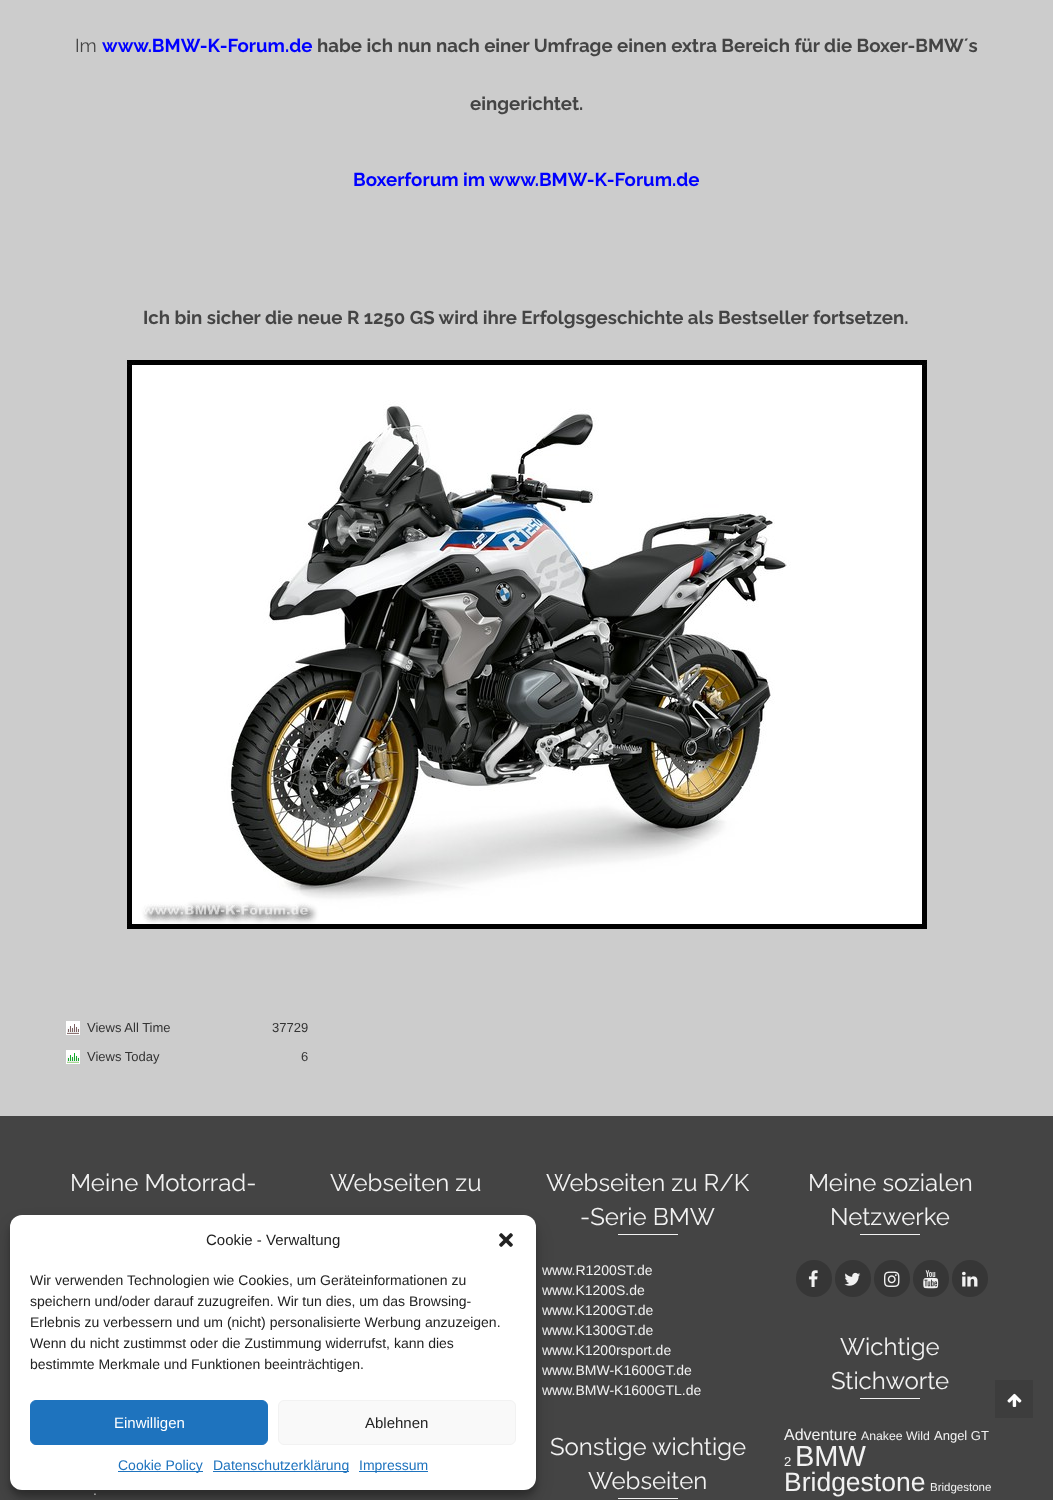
<?xml version="1.0" encoding="UTF-8"?>
<svg xmlns="http://www.w3.org/2000/svg" width="1053" height="1500">
    <defs>
        <filter id="blur1" x="-50%" y="-200%" width="200%" height="500%"><feGaussianBlur stdDeviation="3"/></filter>
        <filter id="blur2" x="-50%" y="-200%" width="200%" height="500%"><feGaussianBlur stdDeviation="10"/></filter>
    </defs>
    <rect width="100%" height="100%" fill="#CCCCCC"/>
    <text x="75" y="52" font-family="Raleway" font-size="18.65" fill="#444444">Im</text>
    <text x="102" y="52" font-family="Raleway" font-size="18.65" font-weight="700" fill="#0000FF">www.BMW-K-Forum.de</text>
    <text x="317" y="52" font-family="Raleway" font-size="18.65" font-weight="700" fill="#444444">habe ich nun nach einer Umfrage einen extra Bereich für die Boxer-BMW´s</text>
    <text x="470" y="110" font-family="Raleway" font-size="18.65" font-weight="700" fill="#444444">eingerichtet.</text>
    <text x="353" y="186" font-family="Raleway" font-size="18.65" font-weight="700" fill="#0000FF">Boxerforum im www.BMW-K-Forum.de</text>
    <text x="143" y="324" font-family="Raleway" font-size="18.65" font-weight="700" fill="#444444">Ich bin sicher die neue R 1250 GS wird ihre Erfolgsgeschichte als Bestseller fortsetzen.</text>
    <image x="127" y="360" width="800" height="569" href="img_01.png"/>
    <image x="66" y="1021" width="14" height="14" href="img_02.png"/>
    <text x="87" y="1032" font-family="Liberation Sans" font-size="13" fill="#333333">Views All Time</text>
    <text x="272" y="1032" font-family="Liberation Sans" font-size="13" fill="#333333">37729</text>
    <image x="66" y="1050" width="14" height="14" href="img_03.png"/>
    <text x="87" y="1061" font-family="Liberation Sans" font-size="13" fill="#333333">Views Today</text>
    <text x="301" y="1061" font-family="Liberation Sans" font-size="13" fill="#333333">6</text>
    <rect x="0" y="1116" width="1053" height="384" fill="#444444"/>
    <text x="70" y="1191" font-family="Raleway" font-size="24" fill="#F2F2F2">Meine Motorrad-</text>
    <text x="93" y="1495" font-family="Liberation Sans" font-size="14" fill="#F2F2F2">.</text>
    <text x="330" y="1191" font-family="Raleway" font-size="24" fill="#F2F2F2">Webseiten zu</text>
    <text x="546" y="1191" font-family="Raleway" font-size="24" fill="#F2F2F2">Webseiten zu R/K</text>
    <text x="580" y="1225" font-family="Raleway" font-size="24" fill="#F2F2F2">-Serie BMW</text>
    <rect x="618" y="1234" width="60" height="1" fill="#F2F2F2"/>
    <text font-family="Liberation Sans" font-size="14" fill="#F2F2F2">
        <tspan x="542" y="1275">www.R1200ST.de</tspan>
        <tspan x="542" y="1295">www.K1200S.de</tspan>
        <tspan x="542" y="1315">www.K1200GT.de</tspan>
        <tspan x="542" y="1335">www.K1300GT.de</tspan>
        <tspan x="542" y="1355">www.K1200rsport.de</tspan>
        <tspan x="542" y="1375">www.BMW-K1600GT.de</tspan>
        <tspan x="542" y="1395">www.BMW-K1600GTL.de</tspan>
    </text>
    <text x="550" y="1455" font-family="Raleway" font-size="24" fill="#F2F2F2">Sonstige wichtige</text>
    <text x="588" y="1489" font-family="Raleway" font-size="24" fill="#F2F2F2">Webseiten</text>
    <rect x="618" y="1498" width="60" height="1" fill="#F2F2F2"/>
    <text x="808" y="1191" font-family="Raleway" font-size="24" fill="#F2F2F2">Meine sozialen</text>
    <text x="830" y="1225" font-family="Raleway" font-size="24" fill="#F2F2F2">Netzwerke</text>
    <rect x="860" y="1234" width="60" height="1" fill="#F2F2F2"/>
    <rect x="796" y="1260" width="36" height="37" rx="18" fill="#363636"/>
    <image x="808" y="1270" width="10" height="17" href="img_04.png"/>
    <rect x="835" y="1260" width="36" height="37" rx="18" fill="#363636"/>
    <image x="844" y="1272" width="17" height="14" href="img_05.png"/>
    <rect x="874" y="1260" width="36" height="37" rx="18" fill="#363636"/>
    <image x="884" y="1271" width="16" height="16" href="img_06.png"/>
    <rect x="913" y="1260" width="36" height="37" rx="18" fill="#363636"/>
    <image x="923" y="1270" width="16" height="19" href="img_07.png"/>
    <rect x="952" y="1260" width="36" height="37" rx="18" fill="#363636"/>
    <image x="962" y="1271" width="16" height="16" href="img_08.png"/>
    <text x="840" y="1355" font-family="Raleway" font-size="24" fill="#F2F2F2">Wichtige</text>
    <text x="831" y="1389" font-family="Raleway" font-size="24" fill="#F2F2F2">Stichworte</text>
    <rect x="860" y="1398" width="60" height="1" fill="#F2F2F2"/>
    <text x="784" y="1440" font-family="Liberation Sans" font-size="16" fill="#F2F2F2">Adventure</text>
    <text x="861" y="1440" font-family="Liberation Sans" font-size="12.25" fill="#F2F2F2">Anakee Wild</text>
    <text x="934" y="1440" font-family="Liberation Sans" font-size="13" fill="#F2F2F2">Angel GT</text>
    <text x="784" y="1466" font-family="Liberation Sans" font-size="13" fill="#F2F2F2">2</text>
    <text x="795" y="1466" font-family="Liberation Sans" font-size="29" fill="#F2F2F2">BMW</text>
    <text x="784" y="1491" font-family="Liberation Sans" font-size="26.5" fill="#F2F2F2">Bridgestone</text>
    <text x="930" y="1491" font-family="Liberation Sans" font-size="11.5" fill="#F2F2F2">Bridgestone</text>
    <rect x="10" y="1221" width="526" height="275" rx="12" fill="#000000" fill-opacity="0.23" filter="url(#blur1)"/>
    <rect x="10" y="1225" width="526" height="275" rx="12" fill="#000000" fill-opacity="0.19" filter="url(#blur2)"/>
    <rect x="10" y="1215" width="526" height="275" rx="12" fill="#FFFFFF"/>
    <text x="206" y="1245" font-family="Liberation Sans" font-size="15" fill="#222222">Cookie - Verwaltung</text>
    <image x="499" y="1233" width="14" height="14" href="img_09.png"/>
    <text font-family="Liberation Sans" font-size="14" fill="#222222">
        <tspan x="30" y="1285">Wir verwenden Technologien wie Cookies, um Geräteinformationen zu</tspan>
        <tspan x="30" y="1306">speichern und/oder darauf zuzugreifen. Wir tun dies, um das Browsing-</tspan>
        <tspan x="30" y="1327">Erlebnis zu verbessern und um (nicht) personalisierte Werbung anzuzeigen.</tspan>
        <tspan x="30" y="1348">Wenn du nicht zustimmst oder die Zustimmung widerrufst, kann dies</tspan>
        <tspan x="30" y="1369">bestimmte Merkmale und Funktionen beeinträchtigen.</tspan>
    </text>
    <rect x="30.5" y="1400.5" width="237" height="44" rx="5.5" fill="#1E73BE" stroke="#1E73BE"/>
    <text x="114" y="1428" font-family="Liberation Sans" font-size="15" fill="#FFFFFF">Einwilligen</text>
    <rect x="278.5" y="1400.5" width="237" height="44" rx="5.5" fill="#F9F9F9" stroke="#F2F2F2"/>
    <text x="365" y="1428" font-family="Liberation Sans" font-size="15" fill="#222222">Ablehnen</text>
    <rect x="118" y="1471" width="85" height="1" fill="#1E73BE"/>
    <text x="118" y="1470" font-family="Liberation Sans" font-size="14" fill="#1E73BE">Cookie Policy</text>
    <rect x="213" y="1471" width="136" height="1" fill="#1E73BE"/>
    <text x="213" y="1470" font-family="Liberation Sans" font-size="14" fill="#1E73BE">Datenschutzerklärung</text>
    <rect x="359" y="1471" width="69" height="1" fill="#1E73BE"/>
    <text x="359" y="1470" font-family="Liberation Sans" font-size="14" fill="#1E73BE">Impressum</text>
    <rect x="995" y="1380" width="38" height="38" fill="#3D3D3D"/>
    <image x="1007" y="1393" width="15" height="14" href="img_10.png"/>
</svg>
